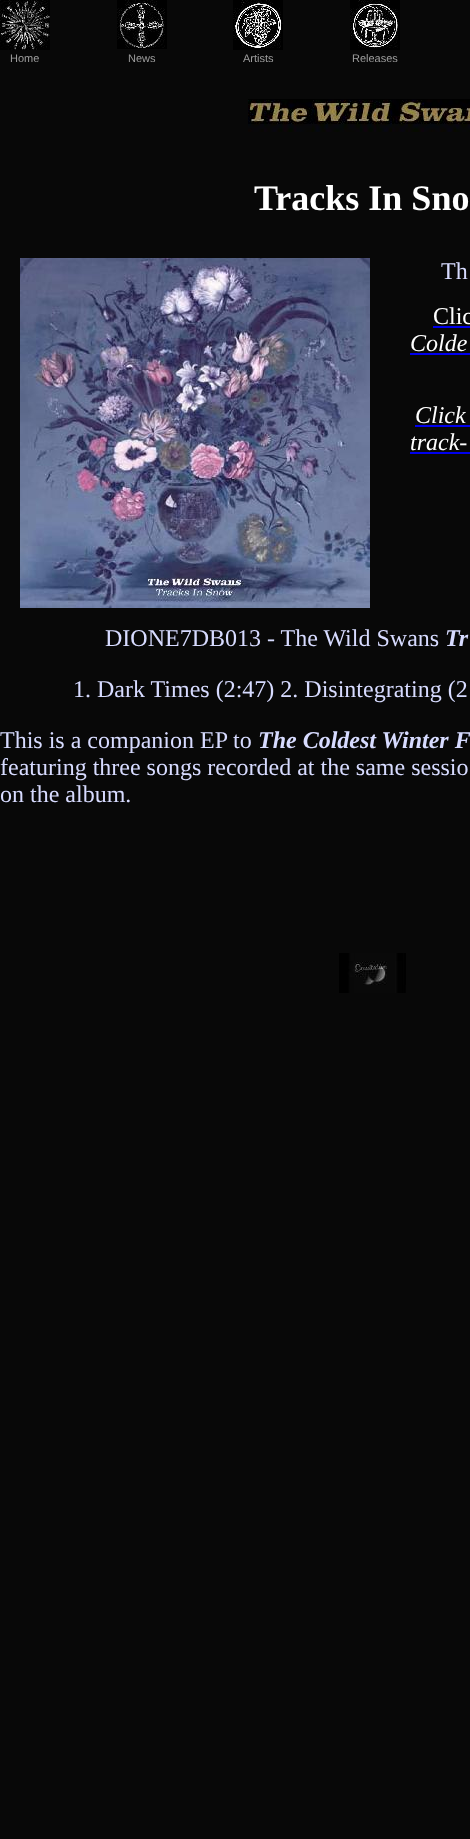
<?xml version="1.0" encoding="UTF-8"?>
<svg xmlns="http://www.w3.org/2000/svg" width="470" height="1839">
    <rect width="100%" height="100%" fill="#080808"/>
    <image x="0" y="0" width="50" height="50" href="img_01.png"/>
    <image x="117" y="0" width="50" height="49" href="img_02.png"/>
    <image x="233" y="0" width="50" height="50" href="img_03.png"/>
    <image x="350" y="0" width="50" height="50" href="img_04.png"/>
    <text x="10" y="62" font-family="Liberation Sans" font-size="11" fill="#9F9F9F">Home</text>
    <text x="128" y="62" font-family="Liberation Sans" font-size="11" fill="#9F9F9F">News</text>
    <text x="243" y="62" font-family="Liberation Sans" font-size="11" fill="#9F9F9F">Artists</text>
    <text x="352" y="62" font-family="Liberation Sans" font-size="11" fill="#9F9F9F">Releases</text>
    <image x="248" y="99" width="222" height="33" href="img_05.png"/>
    <text x="254" y="210" font-family="Liberation Serif" font-size="36" font-weight="700" fill="#FFFFFF">Tracks In Sno</text>
    <image x="20" y="258" width="350" height="350" href="img_06.png"/>
    <text x="441" y="279" font-family="Liberation Serif" font-size="24" fill="#D7DBFF">Th</text>
    <text x="433" y="324" font-family="Liberation Serif" font-size="24" fill="#FFFFFF">Clic</text>
    <rect x="433" y="326" width="37" height="2" fill="#0000EE"/>
    <text x="410" y="351" font-family="Liberation Serif" font-size="24" font-style="italic" fill="#FFFFFF">Colde</text>
    <rect x="410" y="353" width="60" height="2" fill="#0000EE"/>
    <text x="415" y="423" font-family="Liberation Serif" font-size="24" font-style="italic" fill="#FFFFFF">Click</text>
    <rect x="415" y="425" width="55" height="2" fill="#0000EE"/>
    <text x="410" y="450" font-family="Liberation Serif" font-size="24" font-style="italic" fill="#FFFFFF">track-</text>
    <rect x="410" y="452" width="60" height="2" fill="#0000EE"/>
    <text x="105" y="646" font-family="Liberation Serif" font-size="24" fill="#D7DBFF">DIONE7DB013 - The Wild Swans</text>
    <text x="445" y="646" font-family="Liberation Serif" font-size="24" font-weight="700" font-style="italic" fill="#D7DBFF">Tr</text>
    <text x="73" y="697" font-family="Liberation Serif" font-size="24" fill="#D7DBFF">1. Dark Times (2:47) 2. Disintegrating (2</text>
    <text x="0" y="748" font-family="Liberation Serif" font-size="24" fill="#D7DBFF">This is a companion EP to</text>
    <text x="258" y="748" font-family="Liberation Serif" font-size="24" font-weight="700" font-style="italic" fill="#D7DBFF">The Coldest Winter F</text>
    <text font-family="Liberation Serif" font-size="24" fill="#D7DBFF">
        <tspan x="0" y="775">featuring three songs recorded at the same sessio</tspan>
        <tspan x="0" y="802">on the album.</tspan>
    </text>
    <image x="339" y="953" width="67" height="40" href="img_07.png"/>
</svg>
